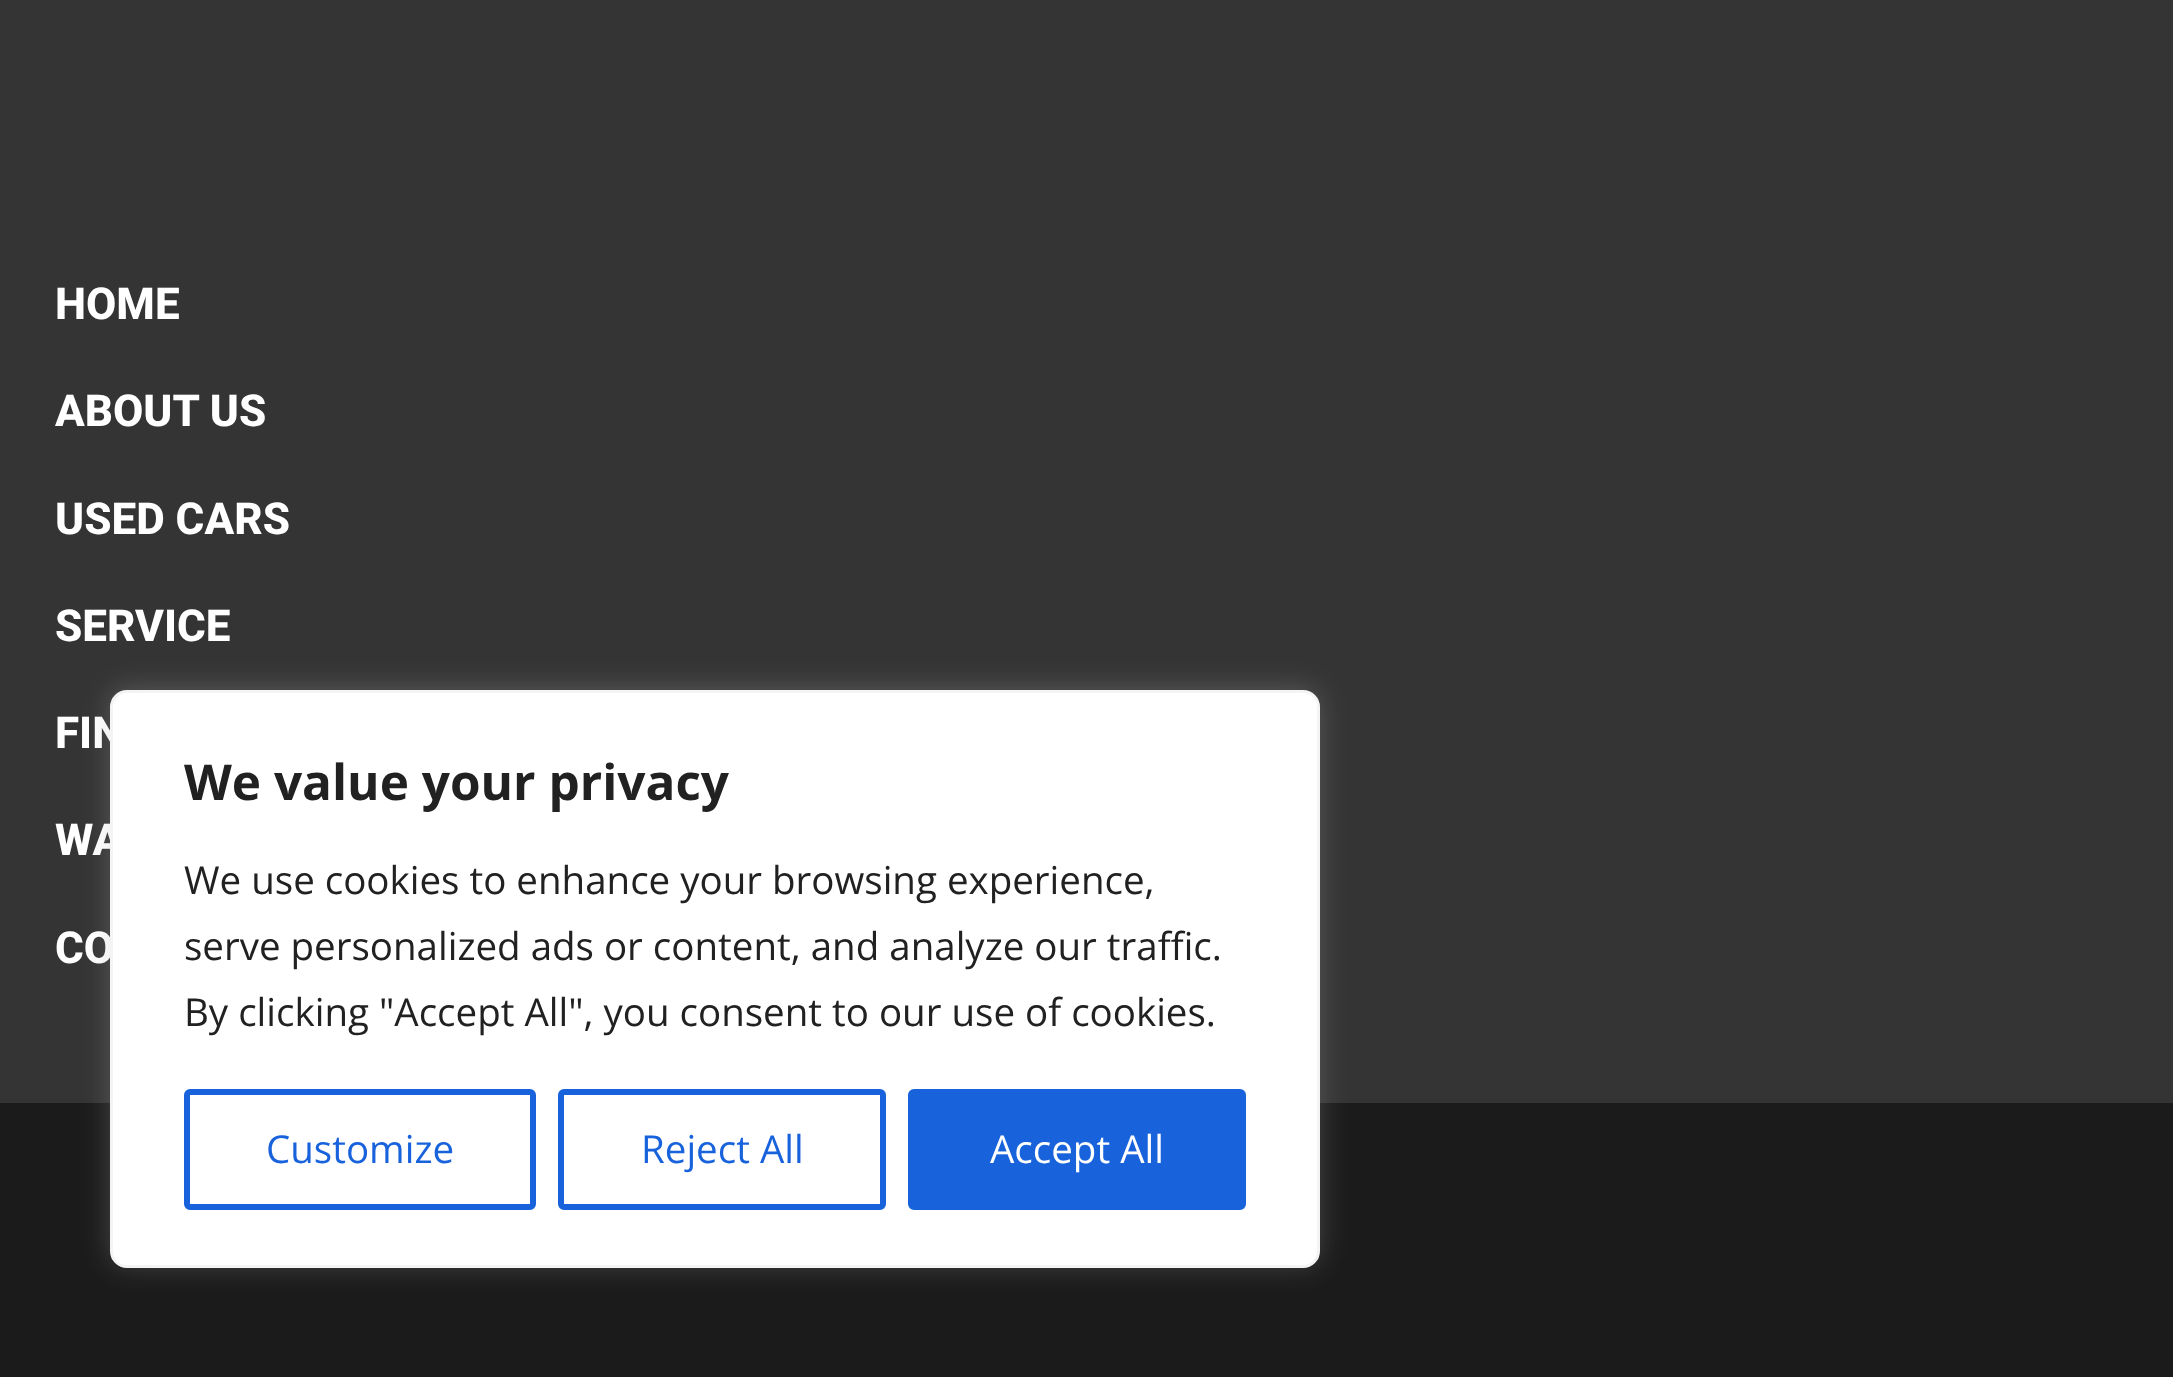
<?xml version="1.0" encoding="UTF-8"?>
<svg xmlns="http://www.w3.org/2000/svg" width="2173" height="1377">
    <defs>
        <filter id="blur1" x="-50%" y="-200%" width="200%" height="500%"><feGaussianBlur stdDeviation="14"/></filter>
    </defs>
    <rect width="100%" height="100%" fill="#1B1B1B"/>
    <rect x="0" y="0" width="2173" height="1103" fill="#343434"/>
    <text x="55" y="319" font-family="Roboto" font-size="44" font-weight="800" fill="#FFFFFF">HOME</text>
    <text x="55" y="426" font-family="Roboto" font-size="44" font-weight="800" fill="#FFFFFF">ABOUT US</text>
    <text x="55" y="534" font-family="Roboto" font-size="44" font-weight="800" fill="#FFFFFF">USED CARS</text>
    <text x="55" y="641" font-family="Roboto" font-size="44" font-weight="800" fill="#FFFFFF">SERVICE</text>
    <text x="55" y="748" font-family="Roboto" font-size="44" font-weight="800" fill="#FFFFFF">FIN</text>
    <text x="55" y="855" font-family="Roboto" font-size="44" font-weight="800" fill="#FFFFFF">WA</text>
    <text x="55" y="963" font-family="Roboto" font-size="44" font-weight="800" fill="#FFFFFF">CO</text>
    <rect x="110" y="688" width="1210" height="577" rx="17" fill="#ACABAB" fill-opacity="0.3" filter="url(#blur1)"/>
    <rect x="111.5" y="691.5" width="1207" height="575" rx="15.5" fill="#FFFFFF" stroke="#F4F4F4" stroke-width="3"/>
    <text x="184" y="800" font-family="Open Sans" font-size="49.5" font-weight="700" fill="#212121">We value your privacy</text>
    <text font-family="Open Sans" font-size="38.5" fill="#212121">
        <tspan x="184" y="894">We use cookies to enhance your browsing experience,</tspan>
        <tspan x="184" y="960">serve personalized ads or content, and analyze our traffic.</tspan>
        <tspan x="184" y="1026">By clicking "Accept All", you consent to our use of cookies.</tspan>
    </text>
    <rect x="187" y="1092" width="346" height="115" rx="3" fill="none" stroke="#1863DC" stroke-width="6"/>
    <text x="266" y="1163" font-family="Open Sans" font-size="38.5" fill="#1863DC">Customize</text>
    <rect x="561" y="1092" width="322" height="115" rx="3" fill="none" stroke="#1863DC" stroke-width="6"/>
    <text x="641" y="1163" font-family="Open Sans" font-size="38.5" fill="#1863DC">Reject All</text>
    <rect x="911" y="1092" width="332" height="115" rx="3" fill="#1863DC" stroke="#1863DC" stroke-width="6"/>
    <text x="990" y="1163" font-family="Open Sans" font-size="38.5" fill="#FFFFFF">Accept All</text>
</svg>
